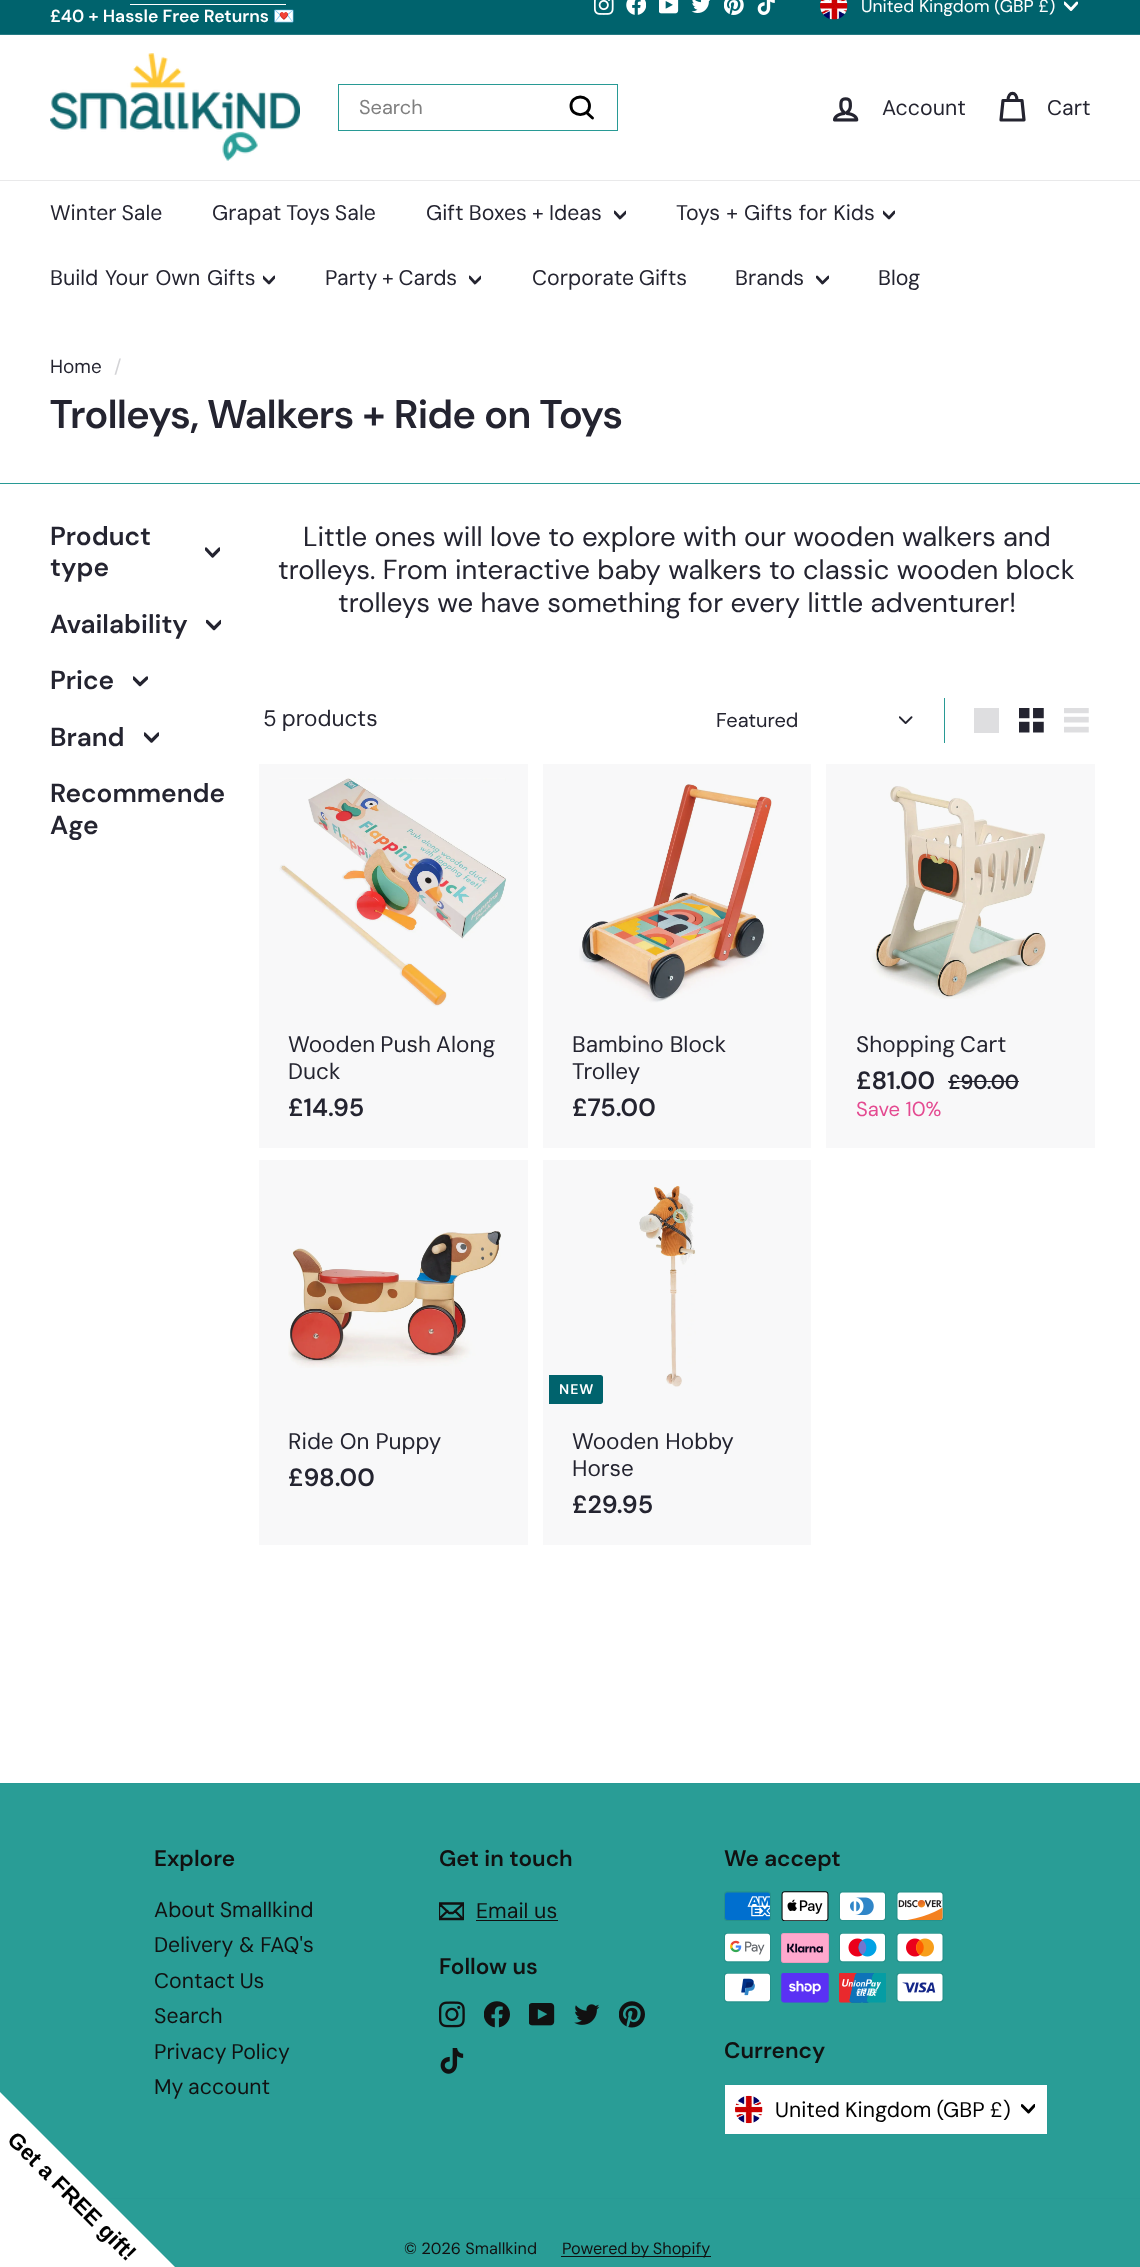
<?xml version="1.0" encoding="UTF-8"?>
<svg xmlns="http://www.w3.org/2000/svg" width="1140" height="2267">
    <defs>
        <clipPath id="clip1"><rect x="1064" y="0" width="14" height="14"/></clipPath>
        <clipPath id="clip2"><rect x="614" y="209" width="12" height="12"/></clipPath>
        <clipPath id="clip3"><rect x="883" y="209" width="12" height="12"/></clipPath>
        <clipPath id="clip4"><rect x="263" y="274" width="12" height="12"/></clipPath>
        <clipPath id="clip5"><rect x="469" y="274" width="12" height="12"/></clipPath>
        <clipPath id="clip6"><rect x="816" y="274" width="13" height="12"/></clipPath>
        <clipPath id="clip7"><rect x="205" y="545" width="15" height="15"/></clipPath>
        <clipPath id="clip8"><rect x="206" y="618" width="15" height="15"/></clipPath>
        <clipPath id="clip9"><rect x="133" y="674" width="15" height="15"/></clipPath>
        <clipPath id="clip10"><rect x="144" y="730" width="15" height="15"/></clipPath>
        <clipPath id="clip11"><rect x="439" y="1899" width="25" height="25"/></clipPath>
        <clipPath id="clip12"><rect x="1021" y="2103" width="14" height="13"/></clipPath>
    </defs>
    <rect width="100%" height="100%" fill="#FFFFFF"/>
    <rect x="543" y="1160" width="268" height="385" fill="#F8F8F9"/>
    <rect x="259" y="1160" width="269" height="385" fill="#F8F8F9"/>
    <rect x="826" y="764" width="269" height="384" fill="#F8F8F9"/>
    <rect x="543" y="764" width="268" height="384" fill="#F8F8F9"/>
    <rect x="259" y="764" width="269" height="384" fill="#F8F8F9"/>
    <rect x="0" y="0" width="1140" height="34" fill="#00636D"/>
    <rect x="130" y="4" width="156" height="1" fill="#FFFFFF"/>
    <text x="50" y="22" font-family="'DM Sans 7'" font-size="17.5" font-weight="600" fill="#FFFFFF">£40 + Hassle Free Returns</text>
    <text x="273" y="22" font-family="Noto Color Emoji" font-size="17.5" font-weight="700" fill="#FFFFFF">💌</text>
    <image x="594" y="0" width="20" height="15" href="img_01.png"/>
    <image x="626" y="0" width="20" height="15" href="img_02.png"/>
    <image x="659" y="0" width="20" height="14" href="img_03.png"/>
    <image x="691" y="0" width="19" height="13" href="img_04.png"/>
    <image x="724" y="0" width="20" height="15" href="img_05.png"/>
    <image x="757" y="0" width="18" height="15" href="img_06.png"/>
    <image x="820" y="0" width="28" height="20" href="img_07.png"/>
    <text x="861" y="12" font-family="'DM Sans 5'" font-size="17.5" fill="#FFFFFF">United Kingdom (GBP £)</text>
    <g clip-path="url(#clip1)">
        <path d="M 1064.5 3 L 1071 9.5 L 1077 3" fill="none" stroke="#FFFFFF" stroke-width="2.9" stroke-linecap="round" stroke-linejoin="round"/>
    </g>
    <rect x="0" y="34" width="1140" height="1" fill="#267A83"/>
    <image x="50" y="53" width="250" height="108" href="img_08.png"/>
    <rect x="338.5" y="84.5" width="279" height="46" fill="none" stroke="#289A95"/>
    <text x="359" y="114" font-family="'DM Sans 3'" font-size="20" fill="#808080">Search</text>
    <path d="M 589.5 106 C 589.5 117.5 571 117.5 571 106 C 571 94 589.5 94 589.5 106 Z M 592.5 118 L 586.5 112.5" fill="none" stroke="#000000" stroke-width="2.9" stroke-linecap="round" stroke-linejoin="round"/>
    <image x="833" y="97" width="26" height="25" href="img_09.png"/>
    <text x="882" y="115" font-family="'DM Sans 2'" font-size="21.25" fill="#242430">Account</text>
    <path d="M 1008 100.5 C 1008 91 1017 91 1017 100.5 M 1003 100.5 H 1022 L 1024 120 H 1001 Z" fill="none" stroke="#242430" stroke-width="3.2" stroke-linecap="round" stroke-linejoin="round"/>
    <text x="1047" y="115" font-family="'DM Sans 2'" font-size="21.25" fill="#242430">Cart</text>
    <rect x="0" y="180" width="1140" height="1" fill="#E9E9EA"/>
    <text x="50" y="220" word-spacing="-1" font-family="'DM Sans 2'" font-size="21.25" fill="#242430">Winter Sale</text>
    <text x="212" y="220" word-spacing="-1" font-family="'DM Sans 2'" font-size="21.25" fill="#242430">Grapat Toys Sale</text>
    <text x="426" y="220" word-spacing="-0.5" font-family="'DM Sans 2'" font-size="21.25" fill="#242430">Gift Boxes + Ideas</text>
    <g clip-path="url(#clip2)">
        <path d="M 614.5 212 L 620 218 L 626 212" fill="none" stroke="#242430" stroke-width="2.7" stroke-linecap="round" stroke-linejoin="round"/>
    </g>
    <text x="676" y="220" word-spacing="0.5" font-family="'DM Sans 2'" font-size="21.25" fill="#242430">Toys + Gifts for Kids</text>
    <g clip-path="url(#clip3)">
        <path d="M 883 212 L 889 218 L 894.5 212" fill="none" stroke="#242430" stroke-width="2.7" stroke-linecap="round" stroke-linejoin="round"/>
    </g>
    <text x="50" y="285" word-spacing="1" font-family="'DM Sans 2'" font-size="21.25" fill="#242430">Build Your Own Gifts</text>
    <g clip-path="url(#clip4)">
        <path d="M 263 277 L 269 283 L 274.5 277" fill="none" stroke="#242430" stroke-width="2.7" stroke-linecap="round" stroke-linejoin="round"/>
    </g>
    <text x="325" y="285" word-spacing="-1" font-family="'DM Sans 2'" font-size="21.25" fill="#242430">Party + Cards</text>
    <g clip-path="url(#clip5)">
        <path d="M 469.5 277 L 475 283 L 481 277" fill="none" stroke="#242430" stroke-width="2.7" stroke-linecap="round" stroke-linejoin="round"/>
    </g>
    <text x="532" y="285" word-spacing="-1" font-family="'DM Sans 2'" font-size="21.25" fill="#242430">Corporate Gifts</text>
    <text x="735" y="285" font-family="'DM Sans 2'" font-size="21.25" fill="#242430">Brands</text>
    <g clip-path="url(#clip6)">
        <path d="M 817 277 L 822.5 283 L 828.5 277" fill="none" stroke="#242430" stroke-width="2.7" stroke-linecap="round" stroke-linejoin="round"/>
    </g>
    <text x="878" y="285" font-family="'DM Sans 2'" font-size="21.25" fill="#242430">Blog</text>
    <text x="50" y="373" font-family="'DM Sans 2'" font-size="19" fill="#242430">Home</text>
    <text x="114" y="373" font-family="'DM Sans 2'" font-size="19" fill="#D3D3D6">/</text>
    <text x="50" y="428" font-family="DM Sans" font-size="40" font-weight="600" fill="#242430">Trolleys, Walkers + Ride on Toys</text>
    <rect x="0" y="483" width="1140" height="1" fill="#289A95"/>
    <text font-family="'DM Sans 3'" font-size="26.25" font-weight="600" fill="#242430">
        <tspan x="50" y="545">Product</tspan>
        <tspan x="50" y="576">type</tspan>
    </text>
    <g clip-path="url(#clip7)">
        <path d="M 206 549 L 212.5 556 L 219.5 549" fill="none" stroke="#242430" stroke-width="3.2" stroke-linecap="round" stroke-linejoin="round"/>
    </g>
    <text x="50" y="633" font-family="'DM Sans 3'" font-size="26.25" font-weight="600" fill="#242430">Availability</text>
    <g clip-path="url(#clip8)">
        <path d="M 207 621.5 L 214 628.5 L 221 621.5" fill="none" stroke="#242430" stroke-width="3.2" stroke-linecap="round" stroke-linejoin="round"/>
    </g>
    <text x="50" y="689" font-family="'DM Sans 3'" font-size="26.25" font-weight="600" fill="#242430">Price</text>
    <g clip-path="url(#clip9)">
        <path d="M 133.5 678 L 140 684.5 L 147 678" fill="none" stroke="#242430" stroke-width="3.2" stroke-linecap="round" stroke-linejoin="round"/>
    </g>
    <text x="50" y="746" font-family="'DM Sans 3'" font-size="26.25" font-weight="600" fill="#242430">Brand</text>
    <g clip-path="url(#clip10)">
        <path d="M 144.5 734 L 151.5 741 L 158.5 734" fill="none" stroke="#242430" stroke-width="3.2" stroke-linecap="round" stroke-linejoin="round"/>
    </g>
    <text font-family="'DM Sans 3'" font-size="26.25" font-weight="600" fill="#242430">
        <tspan x="50" y="802">Recommende</tspan>
        <tspan x="50" y="834">Age</tspan>
    </text>
    <text x="303" y="546" font-family="DM Sans" font-size="27.5" fill="#242430">Little ones will love to explore with our wooden walkers and</text>
    <text x="278" y="579" font-family="DM Sans" font-size="27.5" fill="#242430">trolleys. From interactive baby walkers to classic wooden block</text>
    <text x="338" y="612" font-family="DM Sans" font-size="27.5" fill="#242430">trolleys we have something for every little adventurer!</text>
    <text x="263" y="726" word-spacing="-1" font-family="'DM Sans 2'" font-size="22.5" fill="#242430">5 products</text>
    <rect x="944" y="698" width="1" height="45" fill="#289A95"/>
    <image x="899" y="716" width="14" height="8" href="img_10.png"/>
    <text x="716" y="727" font-family="'DM Sans 3'" font-size="20" fill="#242430">Featured</text>
    <rect x="974" y="708" width="25" height="25" fill="#DEDEE0"/>
    <image x="1019" y="708" width="25" height="25" href="img_11.png"/>
    <image x="1064" y="708" width="25" height="25" href="img_12.png"/>
    <image x="279" y="778" width="227" height="229" href="img_13.png"/>
    <text font-family="'DM Sans 2'" font-size="22.5" fill="#242430">
        <tspan x="288" y="1052" word-spacing="-1">Wooden Push Along</tspan>
        <tspan x="288" y="1079">Duck</tspan>
    </text>
    <text x="288" y="1116" font-family="'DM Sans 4'" font-size="25" font-weight="600" fill="#242430">£14.95</text>
    <image x="579" y="784" width="193" height="219" href="img_14.png"/>
    <text font-family="'DM Sans 2'" font-size="22.5" fill="#242430">
        <tspan x="572" y="1052">Bambino Block</tspan>
        <tspan x="572" y="1079">Trolley</tspan>
    </text>
    <text x="572" y="1116" font-family="'DM Sans 4'" font-size="25" font-weight="600" fill="#242430">£75.00</text>
    <image x="870" y="786" width="176" height="213" href="img_15.png"/>
    <text x="856" y="1052" word-spacing="-1" font-family="'DM Sans 2'" font-size="22.5" fill="#242430">Shopping Cart</text>
    <text x="856" y="1089" font-family="'DM Sans 4'" font-size="25" font-weight="600" fill="#242430">£81.00</text>
    <text x="948" y="1089" font-family="'DM Sans 5'" font-size="20.25" font-weight="600" fill="#242430">£90.00</text>
    <rect x="948" y="1081" width="71" height="1" fill="#242430"/>
    <text x="856" y="1116" font-family="'DM Sans 4'" font-size="20.25" fill="#E44A91">Save 10%</text>
    <image x="288" y="1231" width="213" height="137" href="img_16.png"/>
    <text x="288" y="1449" font-family="'DM Sans 2'" font-size="22.5" fill="#242430">Ride On Puppy</text>
    <text x="288" y="1486" font-family="'DM Sans 4'" font-size="25" font-weight="600" fill="#242430">£98.00</text>
    <image x="639" y="1185" width="57" height="202" href="img_17.png"/>
    <path d="M 549 1375 H 600.5 C 602 1375 603 1376 603 1377.5 V 1401.5 C 603 1403 602 1404 600.5 1404 H 549 Z" fill="#00636D"/>
    <text x="559" y="1394" font-family="'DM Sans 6'" font-size="14" font-weight="600" letter-spacing="1" fill="#FFFFFF">NEW</text>
    <text font-family="'DM Sans 2'" font-size="22.5" fill="#242430">
        <tspan x="572" y="1449">Wooden Hobby</tspan>
        <tspan x="572" y="1476">Horse</tspan>
    </text>
    <text x="572" y="1513" font-family="'DM Sans 4'" font-size="25" font-weight="600" fill="#242430">£29.95</text>
    <rect x="0" y="1784" width="1140" height="483" fill="#299D96"/>
    <rect x="0" y="1783" width="1140" height="1" fill="#289A95"/>
    <text x="154" y="1866" font-family="'DM Sans 2'" font-size="22.5" font-weight="600" fill="#111111">Explore</text>
    <text font-family="'DM Sans 2'" font-size="21.25" fill="#111111">
        <tspan x="154" y="1917" word-spacing="-1">About Smallkind</tspan>
        <tspan x="154" y="1952">Delivery &amp; FAQ's</tspan>
        <tspan x="154" y="1988" word-spacing="-1">Contact Us</tspan>
        <tspan x="154" y="2023">Search</tspan>
        <tspan x="154" y="2059" word-spacing="-1">Privacy Policy</tspan>
        <tspan x="154" y="2094" word-spacing="-1">My account</tspan>
    </text>
    <text x="439" y="1866" font-family="'DM Sans 2'" font-size="22.5" font-weight="600" fill="#111111">Get in touch</text>
    <g clip-path="url(#clip11)">
        <path d="M 463.5 1919 H 439 V 1903.5 H 463.5 Z M 439 1903.5 L 449 1913 H 453 L 463.5 1903.5 M 447.5 1911 L 439.5 1918.5 M 463 1919 L 455 1911" fill="none" stroke="#111111" stroke-width="2.3" stroke-linecap="round" stroke-linejoin="round"/>
    </g>
    <text x="476" y="1918" font-family="'DM Sans 2'" font-size="21.25" fill="#111111">Email us</text>
    <rect x="476" y="1920" width="82" height="1" fill="#111111"/>
    <text x="439" y="1974" font-family="'DM Sans 2'" font-size="22.5" font-weight="600" fill="#111111">Follow us</text>
    <image x="439" y="2001" width="26" height="27" href="img_18.png"/>
    <image x="484" y="2001" width="26" height="27" href="img_19.png"/>
    <image x="529" y="2003" width="26" height="23" href="img_20.png"/>
    <image x="574" y="2004" width="26" height="21" href="img_21.png"/>
    <image x="619" y="2001" width="26" height="27" href="img_22.png"/>
    <image x="440" y="2048" width="24" height="26" href="img_23.png"/>
    <text x="724" y="1866" font-family="'DM Sans 2'" font-size="22.5" font-weight="600" fill="#111111">We accept</text>
    <image x="724" y="1891" width="47" height="30" href="img_24.png"/>
    <image x="781" y="1891" width="48" height="30" href="img_25.png"/>
    <image x="839" y="1891" width="47" height="30" href="img_26.png"/>
    <image x="896" y="1891" width="48" height="30" href="img_27.png"/>
    <image x="724" y="1933" width="47" height="30" href="img_28.png"/>
    <image x="781" y="1933" width="48" height="30" href="img_29.png"/>
    <image x="839" y="1933" width="47" height="30" href="img_30.png"/>
    <image x="896" y="1933" width="48" height="30" href="img_31.png"/>
    <image x="724" y="1973" width="47" height="30" href="img_32.png"/>
    <image x="781" y="1973" width="48" height="30" href="img_33.png"/>
    <image x="839" y="1973" width="47" height="30" href="img_34.png"/>
    <image x="896" y="1973" width="48" height="30" href="img_35.png"/>
    <text x="724" y="2058" font-family="'DM Sans 2'" font-size="22.5" font-weight="600" fill="#111111">Currency</text>
    <rect x="724.5" y="2084.5" width="323" height="50" fill="#FFFFFF" stroke="#289A95"/>
    <image x="735" y="2095" width="28" height="29" href="img_36.png"/>
    <text x="775" y="2117" word-spacing="-0.5" font-family="'DM Sans 2'" font-size="21.25" fill="#000000">United Kingdom (GBP £)</text>
    <g clip-path="url(#clip12)">
        <path d="M 1022 2105.5 L 1028.5 2112 L 1034.5 2105.5" fill="none" stroke="#000000" stroke-width="2.9" stroke-linecap="round" stroke-linejoin="round"/>
    </g>
    <rect x="106" y="2198" width="1034" height="1" fill="#289A95"/>
    <text x="404" y="2254" font-family="'DM Sans 2'" font-size="16.25" fill="#111111">© 2026 Smallkind</text>
    <rect x="561" y="2256" width="150" height="1" fill="#111111"/>
    <text x="562" y="2254" word-spacing="-1" font-family="'DM Sans 2'" font-size="16.25" fill="#111111">Powered by Shopify</text>
    <path d="M 0 2092 L 175 2267 L 0 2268 Z" fill="#FFFFFF"/>
    <text x="6" y="2141" transform="rotate(45 6 2141)" font-family="Liberation Sans" font-size="22.5" font-weight="700" fill="#000000">Get a FREE gift!</text>
</svg>
